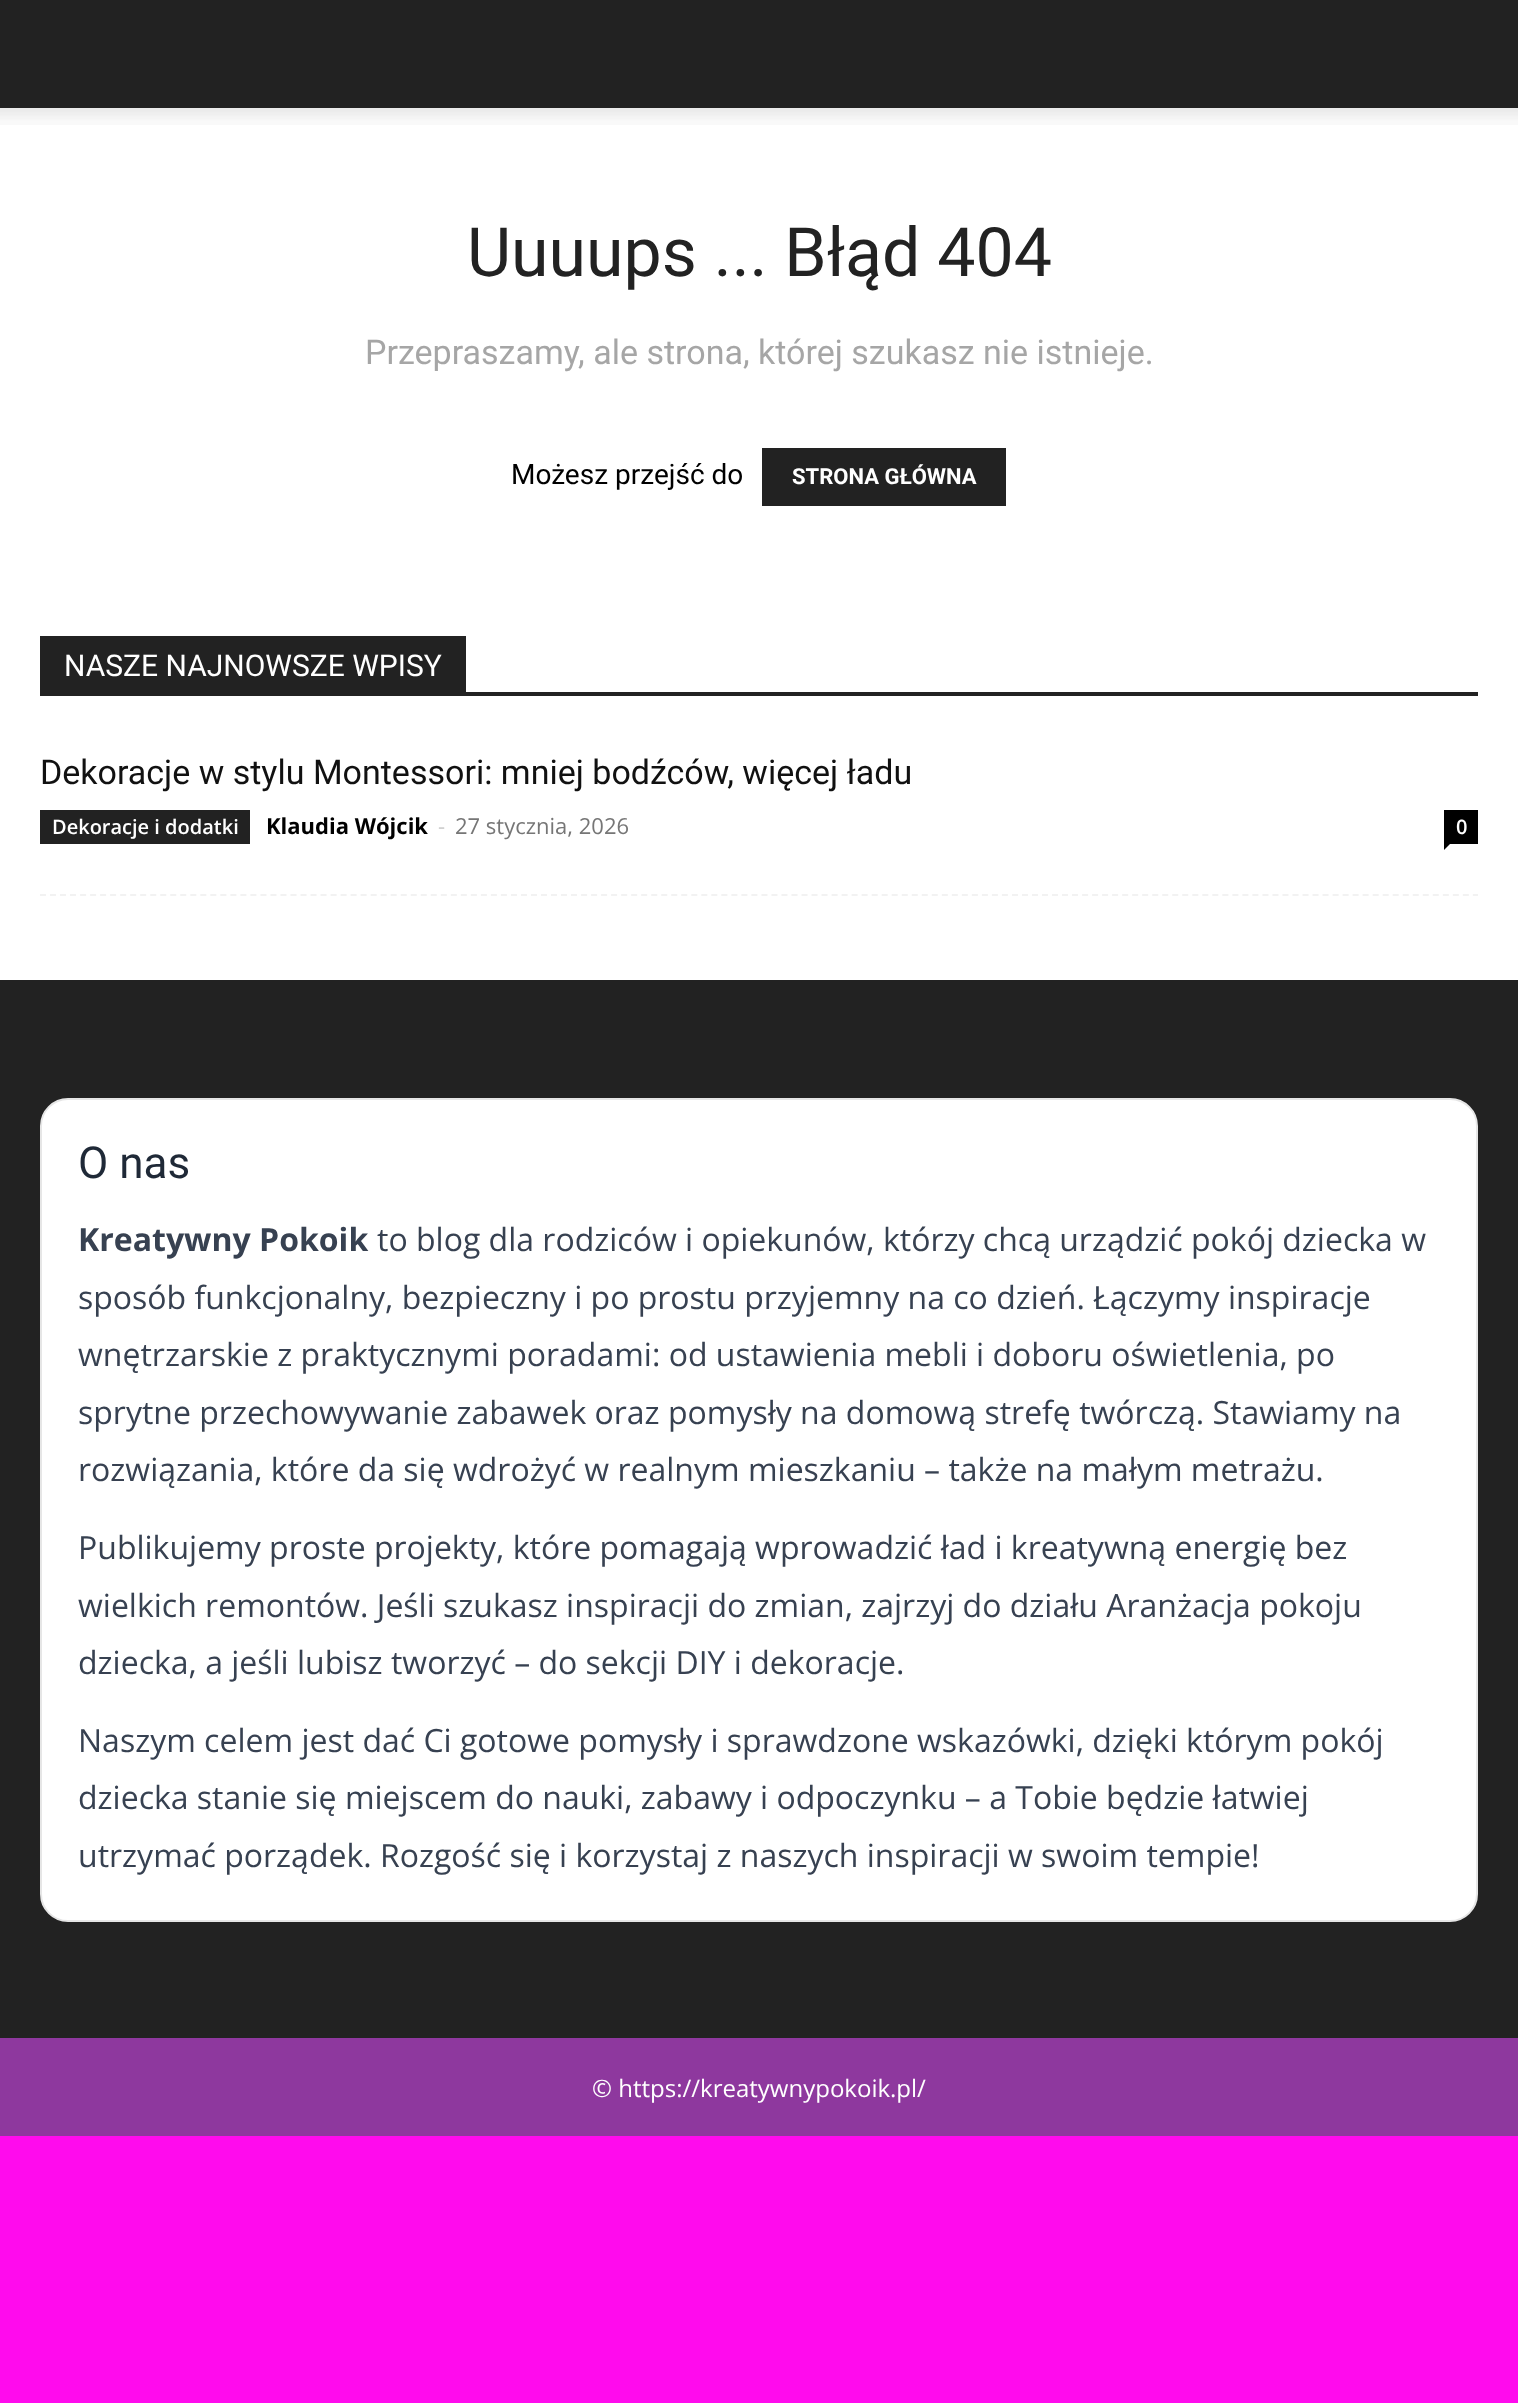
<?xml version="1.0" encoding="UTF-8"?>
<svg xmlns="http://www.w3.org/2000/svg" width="1518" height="2403">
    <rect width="100%" height="100%" fill="#FF0BED"/>
    <rect x="0" y="0" width="1518" height="108" fill="#222222"/>
    <rect x="0" y="108" width="1518" height="872" fill="#FFFFFF"/>
    <image x="0" y="108" width="1518" height="17" href="img_01.png"/>
    <text x="467" y="276" font-family="Roboto" font-size="68" fill="#222222">Uuuups ... Błąd 404</text>
    <text x="365" y="364" font-family="Roboto" font-size="34" fill="#A6A6A6">Przepraszamy, ale strona, której szukasz nie istnieje.</text>
    <text x="511" y="484" font-family="Roboto" font-size="28" fill="#000000">Możesz przejść do</text>
    <rect x="762" y="448" width="244" height="58" fill="#222222"/>
    <text x="792" y="484" font-family="Roboto" font-size="22" font-weight="700" fill="#FFFFFF">STRONA GŁÓWNA</text>
    <rect x="40" y="692" width="1438" height="4" fill="#222222"/>
    <rect x="40" y="636" width="426" height="56" fill="#222222"/>
    <text x="64" y="676" font-family="Roboto" font-size="30" fill="#FFFFFF">NASZE NAJNOWSZE WPISY</text>
    <path d="M 40 895 H 1478" fill="none" stroke="#F2F2F2" stroke-width="2" stroke-dasharray="6 4.02"/>
    <text x="40" y="784" font-family="Roboto" font-size="34" fill="#111111">Dekoracje w stylu Montessori: mniej bodźców, więcej ładu</text>
    <rect x="40" y="810" width="210" height="34" fill="#222222"/>
    <text x="52" y="834" font-family="Open Sans" font-size="20" font-weight="600" fill="#FFFFFF">Dekoracje i dodatki</text>
    <text x="266" y="834" font-family="Open Sans" font-size="22" font-weight="700" fill="#000000">Klaudia Wójcik</text>
    <text x="438" y="834" font-family="Open Sans" font-size="22" fill="#CCCCCC">-</text>
    <text x="455" y="834" font-family="Open Sans" font-size="22" fill="#767676">27 stycznia, 2026</text>
    <rect x="1444" y="810" width="34" height="34" fill="#000000"/>
    <text x="1456" y="834" font-family="Open Sans" font-size="20" font-weight="600" fill="#FFFFFF">0</text>
    <path d="M 1444 844 H 1450 L 1444 850 Z" fill="#000000"/>
    <rect x="0" y="980" width="1518" height="1058" fill="#222222"/>
    <rect x="41" y="1099" width="1436" height="822" rx="27" fill="#FFFFFF" stroke="#E6E6E6" stroke-width="2"/>
    <text x="78" y="1178" font-family="Roboto" font-size="44" fill="#1F2937">O nas</text>
    <text x="78" y="1251" font-family="Open Sans" font-size="32" font-weight="700" fill="#374151">Kreatywny Pokoik</text>
    <text x="377" y="1251" font-family="Open Sans" font-size="32" fill="#374151">to blog dla rodziców i opiekunów, którzy chcą urządzić pokój dziecka w</text>
    <text font-family="Open Sans" font-size="32" fill="#374151">
        <tspan x="78" y="1309">sposób funkcjonalny, bezpieczny i po prostu przyjemny na co dzień. Łączymy inspiracje</tspan>
        <tspan x="78" y="1366">wnętrzarskie z praktycznymi poradami: od ustawienia mebli i doboru oświetlenia, po</tspan>
        <tspan x="78" y="1424">sprytne przechowywanie zabawek oraz pomysły na domową strefę twórczą. Stawiamy na</tspan>
        <tspan x="78" y="1481">rozwiązania, które da się wdrożyć w realnym mieszkaniu – także na małym metrażu.</tspan>
    </text>
    <text font-family="Open Sans" font-size="32" fill="#374151">
        <tspan x="78" y="1559">Publikujemy proste projekty, które pomagają wprowadzić ład i kreatywną energię bez</tspan>
        <tspan x="78" y="1617">wielkich remontów. Jeśli szukasz inspiracji do zmian, zajrzyj do działu Aranżacja pokoju</tspan>
        <tspan x="78" y="1674">dziecka, a jeśli lubisz tworzyć – do sekcji DIY i dekoracje.</tspan>
    </text>
    <text font-family="Open Sans" font-size="32" fill="#374151">
        <tspan x="78" y="1752">Naszym celem jest dać Ci gotowe pomysły i sprawdzone wskazówki, dzięki którym pokój</tspan>
        <tspan x="78" y="1809">dziecka stanie się miejscem do nauki, zabawy i odpoczynku – a Tobie będzie łatwiej</tspan>
        <tspan x="78" y="1867">utrzymać porządek. Rozgość się i korzystaj z naszych inspiracji w swoim tempie!</tspan>
    </text>
    <rect x="0" y="2038" width="1518" height="98" fill="#8E389E"/>
    <text x="592" y="2097" font-family="Open Sans" font-size="24" fill="#FFFFFF">© https://kreatywnypokoik.pl/</text>
</svg>
